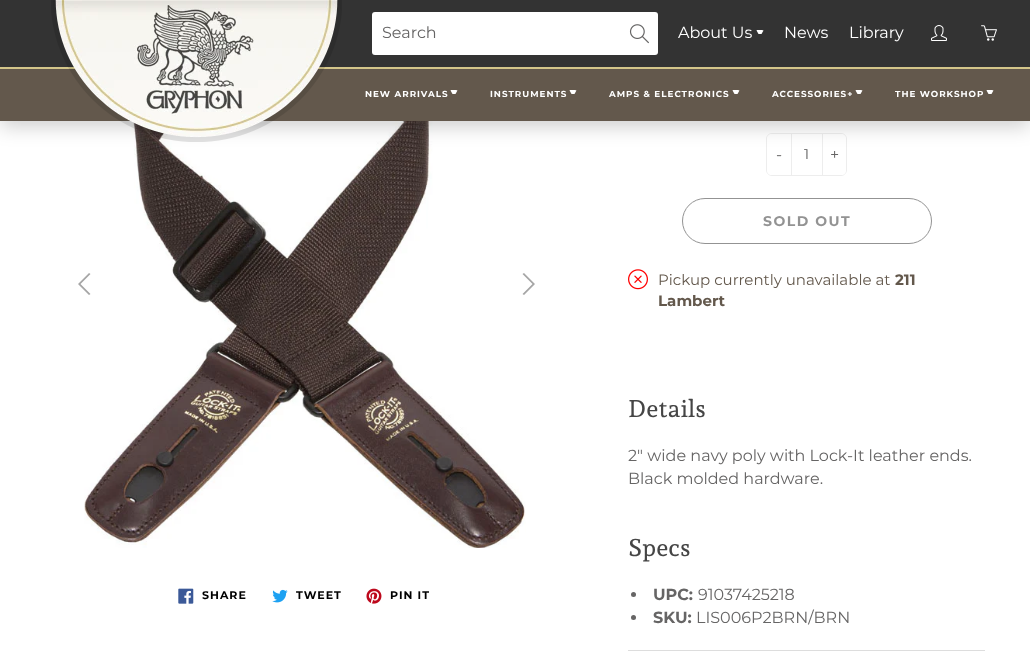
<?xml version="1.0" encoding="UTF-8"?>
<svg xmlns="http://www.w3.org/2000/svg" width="1030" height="669">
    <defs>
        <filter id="blur1" x="-50%" y="-200%" width="200%" height="500%"><feGaussianBlur stdDeviation="10"/></filter>
    </defs>
    <rect width="100%" height="100%" fill="#FFFFFF"/>
    <image x="84" y="121" width="442" height="427" href="img_05.png"/>
    <rect x="766.5" y="133.5" width="80" height="42" rx="5.5" fill="none" stroke="#EDEDED"/>
    <path d="M 772 134 H 791 V 175 H 772 C 769 175 767 173 767 170 V 139 C 767 136 769 134 772 134 Z" fill="#FFFFFF"/>
    <rect x="822" y="134" width="1" height="41" fill="#EDEDED"/>
    <rect x="791" y="134" width="1" height="41" fill="#EDEDED"/>
    <path d="M 823 134 H 841 C 844 134 846 136 846 139 V 170 C 846 173 844 175 841 175 H 823 Z" fill="#FFFFFF"/>
    <rect x="0" y="5" width="1030" height="121" fill="#000000" fill-opacity="0.2" filter="url(#blur1)"/>
    <rect x="0" y="0" width="1030" height="67" fill="#333333"/>
    <rect x="0" y="69" width="1030" height="52" fill="#63584C"/>
    <rect x="0" y="67" width="1030" height="2" fill="#D4C68A"/>
    <image x="51" y="0" width="291" height="142" href="img_01.png"/>
    <rect x="372" y="12" width="286" height="43" rx="3" fill="#FFFFFF"/>
    <text x="382" y="38" font-family="Montserrat" font-size="16" fill="#666565">Search</text>
    <image x="629" y="24" width="20" height="20" href="img_02.png"/>
    <text x="678" y="38" font-family="Montserrat" font-size="16" fill="#FFFFFF">About Us</text>
    <path d="M 757 30 L 756.5 30.5 L 758.5 34 H 761.5 L 763.5 30.5 L 762 30 Z" fill="#FFFFFF"/>
    <text x="784" y="38" font-family="Montserrat" font-size="16" fill="#FFFFFF">News</text>
    <text x="849" y="38" font-family="Montserrat" font-size="16" fill="#FFFFFF">Library</text>
    <image x="931" y="25" width="16" height="16" href="img_03.png"/>
    <image x="981" y="25" width="16" height="16" href="img_04.png"/>
    <text x="365" y="97" font-family="Montserrat" font-size="8.75" font-weight="700" letter-spacing="1" fill="#FFFFFF">NEW ARRIVALS</text>
    <path d="M 451 90 L 450.5 90.5 L 452.5 94 H 455.5 L 457.5 90.5 L 456 90 Z" fill="#FFFFFF"/>
    <text x="490" y="97" font-family="Montserrat" font-size="8.75" font-weight="700" letter-spacing="1" fill="#FFFFFF">INSTRUMENTS</text>
    <path d="M 570 90 L 569.5 90.5 L 571.5 94 H 574.5 L 576.5 90.5 L 575 90 Z" fill="#FFFFFF"/>
    <text x="609" y="97" font-family="Montserrat" font-size="8.75" font-weight="700" letter-spacing="1" fill="#FFFFFF">AMPS &amp; ELECTRONICS</text>
    <path d="M 733 90 L 732.5 90.5 L 734.5 94 H 737.5 L 739.5 90.5 L 738 90 Z" fill="#FFFFFF"/>
    <text x="772" y="97" font-family="Montserrat" font-size="8.75" font-weight="700" letter-spacing="1" fill="#FFFFFF">ACCESSORIES+</text>
    <path d="M 856 90 L 855.5 90.5 L 857.5 94 H 860.5 L 862.5 90.5 L 861 90 Z" fill="#FFFFFF"/>
    <text x="895" y="97" font-family="Montserrat" font-size="8.75" font-weight="700" letter-spacing="1" fill="#FFFFFF">THE WORKSHOP</text>
    <path d="M 987 90 L 986.5 90.5 L 988.5 94 H 991.5 L 993.5 90.5 L 992 90 Z" fill="#FFFFFF"/>
    <path d="M 78 284 L 89 273 L 90.5 274 L 80.5 284 L 90.5 294 L 89 295 Z" fill="#A6A6A6"/>
    <path d="M 535 284 L 524 295 L 522.5 294 L 532.5 284 L 522.5 274 L 524 273 Z" fill="#A6A6A6"/>
    <image x="178" y="588" width="16" height="16" href="img_06.png"/>
    <text x="202" y="599" font-family="Montserrat" font-size="11" font-weight="700" letter-spacing="1" fill="#000000">SHARE</text>
    <image x="272" y="589" width="16" height="14" href="img_07.png"/>
    <text x="296" y="599" font-family="Montserrat" font-size="11" font-weight="700" letter-spacing="1" fill="#000000">TWEET</text>
    <image x="366" y="588" width="16" height="16" href="img_08.png"/>
    <text x="390" y="599" font-family="Montserrat" font-size="11" font-weight="700" letter-spacing="1" fill="#000000">PIN IT</text>
    <text x="776" y="160" font-family="Montserrat" font-size="16" fill="#666565">-</text>
    <text x="804" y="159" font-family="Montserrat" font-size="14" fill="#555555">1</text>
    <text x="830" y="160" font-family="Montserrat" font-size="16" fill="#666565">+</text>
    <rect x="682.5" y="198.5" width="249" height="45" rx="22.5" fill="none" stroke="#939393"/>
    <text x="763" y="226" font-family="Montserrat" font-size="14" font-weight="700" letter-spacing="1.5" fill="#939393">SOLD OUT</text>
    <image x="628" y="269" width="20" height="21" href="img_09.png"/>
    <text x="658" y="285" font-family="Montserrat" font-size="15" fill="#63584C">Pickup currently unavailable at</text>
    <text x="895" y="285" font-family="Montserrat" font-size="15" font-weight="700" fill="#63584C">211</text>
    <text x="658" y="306" font-family="Montserrat" font-size="15" font-weight="700" fill="#63584C">Lambert</text>
    <text x="628" y="417" font-family="Andada Pro" font-size="24" font-weight="500" fill="#454545">Details</text>
    <text font-family="Montserrat" font-size="16" fill="#666565">
        <tspan x="628" y="461">2" wide navy poly with Lock-It leather ends.</tspan>
        <tspan x="628" y="484">Black molded hardware.</tspan>
    </text>
    <text x="628" y="556" font-family="Andada Pro" font-size="24" font-weight="500" fill="#454545">Specs</text>
    <circle cx="633.5" cy="594.5" r="2.5" fill="#666565"/>
    <text x="653" y="600" font-family="Montserrat" font-size="16" font-weight="700" fill="#666565">UPC:</text>
    <text x="698" y="600" font-family="Montserrat" font-size="16" fill="#666565">91037425218</text>
    <circle cx="633.5" cy="617.5" r="2.5" fill="#666565"/>
    <text x="653" y="623" font-family="Montserrat" font-size="16" font-weight="700" fill="#666565">SKU:</text>
    <text x="696" y="623" font-family="Montserrat" font-size="16" fill="#666565">LIS006P2BRN/BRN</text>
    <rect x="628" y="650" width="357" height="1" fill="#DDDDDD"/>
</svg>
